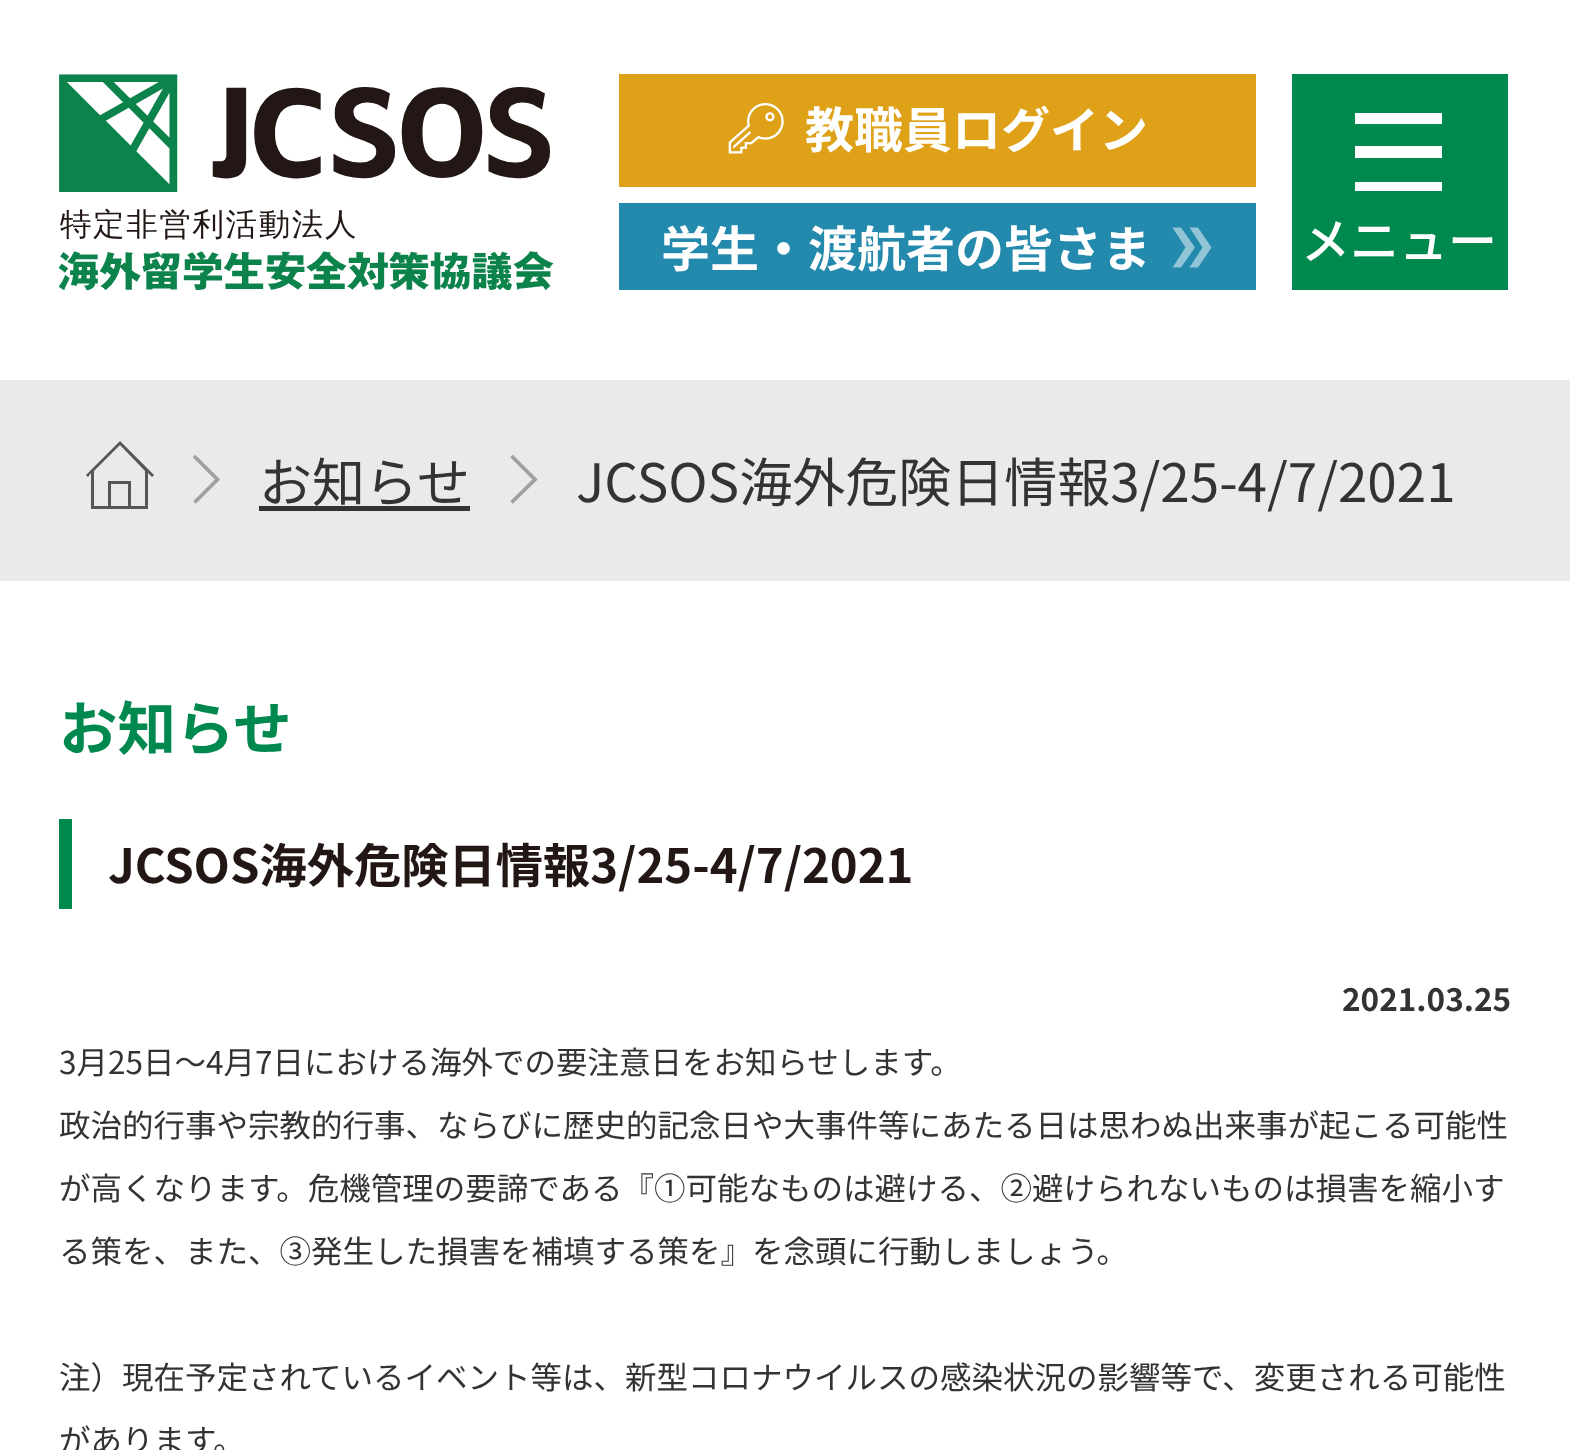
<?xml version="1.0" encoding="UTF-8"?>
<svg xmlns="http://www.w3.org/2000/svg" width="1570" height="1450">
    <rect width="100%" height="100%" fill="#FFFFFF"/>
    <image x="59" y="74" width="495" height="216" href="img_01.png"/>
    <rect x="619" y="74" width="637" height="113" fill="#DEA118"/>
    <image x="728" y="103" width="56" height="51" href="img_02.png"/>
    <text x="805" y="148" font-family="Noto Sans JP" font-size="49" font-weight="700" fill="#FFFFFF">教職員ログイン</text>
    <rect x="619" y="203" width="637" height="87" fill="#2389AD"/>
    <text x="661" y="267" font-family="Noto Sans JP" font-size="49" font-weight="700" fill="#FFFFFF">学生・渡航者の皆さま</text>
    <path d="M 1189.5 227.5 H 1198 L 1211.5 247.5 L 1198 267.5 H 1189.5 L 1202.5 247.5 Z" fill="#91C4D6"/>
    <path d="M 1172.5 227.5 H 1181 L 1195 247.5 L 1181 267.5 H 1172.5 L 1185.5 247.5 Z" fill="#91C4D6"/>
    <rect x="1292" y="74" width="216" height="216" fill="#00894E"/>
    <rect x="1355" y="113" width="87" height="11" fill="#FFFFFF"/>
    <rect x="1355" y="146" width="87" height="12" fill="#FFFFFF"/>
    <rect x="1355" y="182" width="87" height="9" fill="#FFFFFF"/>
    <text x="1301" y="259" font-family="Noto Sans JP" font-size="49" font-weight="500" fill="#FFFFFF">メニュー</text>
    <rect x="0" y="380" width="1570" height="201" fill="#EAEAEA"/>
    <path d="M 148 473 V 509 H 91 V 473 L 88 477 L 86 475 L 120 441 L 154 475 L 152 477 Z M 131 506 H 145 V 471 L 120 445 L 94 471 V 506 H 108 V 481 H 131 Z M 128 484 H 111 V 506 H 128 Z" fill="#565656" fill-rule="evenodd"/>
    <path d="M 194 456 L 217.5 479.5 L 194.5 502.5" fill="none" stroke="#A0A0A0" stroke-width="3.8"/>
    <rect x="259" y="506" width="211" height="5" fill="#333333"/>
    <text x="259" y="502" font-family="Noto Sans JP" font-size="53" fill="#333333">お知らせ</text>
    <path d="M 511.5 456 L 535 479.5 L 511.5 502.5" fill="none" stroke="#A0A0A0" stroke-width="3.8"/>
    <text x="576" y="502" font-family="Noto Sans JP" font-size="53" fill="#333333">JCSOS海外危険日情報3/25-4/7/2021</text>
    <text x="59" y="750" font-family="Noto Sans JP" font-size="58.5" font-weight="700" fill="#00894E">お知らせ</text>
    <rect x="59" y="819" width="13" height="90" fill="#00894E"/>
    <text x="108" y="883" font-family="Noto Sans JP" font-size="47.25" font-weight="700" fill="#221714">JCSOS海外危険日情報3/25-4/7/2021</text>
    <text x="1342" y="1011" font-family="Noto Sans JP" font-size="31.5" font-weight="700" fill="#333333">2021.03.25</text>
    <text x="59" y="1074" font-family="Noto Sans JP" font-size="31.5" fill="#333333">3月25日～4月7日における海外での要注意日をお知らせします。</text>
    <text x="59" y="1137" font-family="Noto Sans JP" font-size="31.5" fill="#333333">政治的行事や宗教的行事、ならびに歴史的記念日や大事件等にあたる日は思わぬ出来事が起こる可能性</text>
    <text x="59" y="1200" font-family="Noto Sans JP" font-size="31.5" fill="#333333">が高くなります。危機管理の要諦である『①可能なものは避ける、②避けられないものは損害を縮小す</text>
    <text x="59" y="1263" font-family="Noto Sans JP" font-size="31.5" fill="#333333">る策を、また、③発生した損害を補填する策を』を念頭に行動しましょう。</text>
    <text x="59" y="1389" font-family="Noto Sans JP" font-size="31.5" fill="#333333">注）現在予定されているイベント等は、新型コロナウイルスの感染状況の影響等で、変更される可能性</text>
    <text x="59" y="1452" font-family="Noto Sans JP" font-size="31.5" fill="#333333">があります。</text>
</svg>
